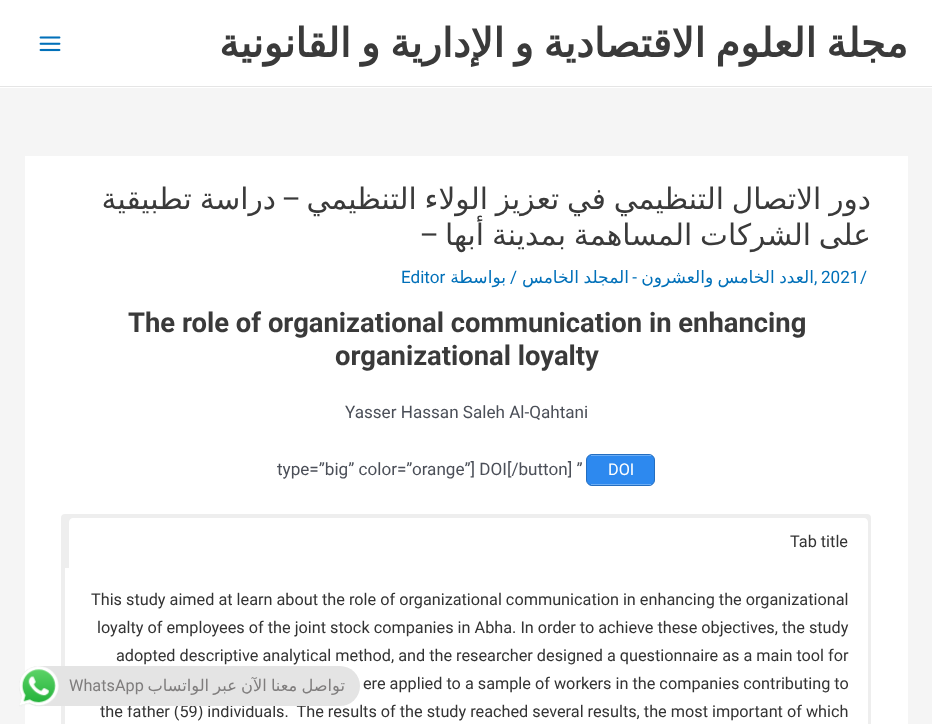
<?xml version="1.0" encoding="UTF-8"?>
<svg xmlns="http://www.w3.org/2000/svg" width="932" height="724">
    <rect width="100%" height="100%" fill="#F5F5F5"/>
    <rect x="0" y="0" width="932" height="88" fill="#FFFFFF"/>
    <rect x="0" y="86" width="932" height="1" fill="#E5E5E5"/>
    <image x="39" y="36" width="22" height="16" href="img_01.png"/>
    <text x="908" y="57" word-spacing="-2.75" font-family="DejaVu Sans" font-size="39.9" font-weight="700" direction="rtl" fill="#3A3A3A">مجلة العلوم الاقتصادية و الإدارية و القانونية</text>
    <rect x="25" y="156" width="883" height="568" fill="#FFFFFF"/>
    <text x="276" y="209" word-spacing="-1.5" font-family="DejaVu Sans" font-size="29.6" direction="rtl" fill="#3A3A3A">دراسة تطبيقية</text>
    <text x="301" y="209" font-family="Roboto" font-size="29.6" direction="rtl" fill="#3A3A3A">–</text>
    <text x="871" y="209" word-spacing="-1.5" font-family="DejaVu Sans" font-size="29.6" direction="rtl" fill="#3A3A3A">دور الاتصال التنظيمي في تعزيز الولاء التنظيمي</text>
    <text x="439" y="245" font-family="Roboto" font-size="29.6" direction="rtl" fill="#3A3A3A">–</text>
    <text x="871" y="245" word-spacing="-1.5" font-family="DejaVu Sans" font-size="29.6" direction="rtl" fill="#3A3A3A">على الشركات المساهمة بمدينة أبها</text>
    <text x="401" y="283" font-family="Roboto" font-size="17.1" fill="#0170B9">Editor</text>
    <text x="506" y="283" font-family="DejaVu Sans" font-size="17.1" direction="rtl" fill="#0170B9">بواسطة</text>
    <text x="517" y="283" font-family="Roboto" font-size="17.1" direction="rtl" fill="#0170B9">/</text>
    <text x="629" y="283" word-spacing="-1" font-family="DejaVu Sans" font-size="17.1" direction="rtl" fill="#0170B9">المجلد الخامس</text>
    <text x="637" y="283" font-family="Roboto" font-size="17.1" direction="rtl" fill="#0170B9">-</text>
    <text x="814" y="283" font-family="Roboto" font-size="17.1" fill="#0170B9">,</text>
    <text x="814" y="283" word-spacing="-1" font-family="DejaVu Sans" font-size="17.1" direction="rtl" fill="#0170B9">العدد الخامس والعشرون</text>
    <text x="821" y="283" font-family="Roboto" font-size="17.1" fill="#0170B9">2021</text>
    <text x="860" y="283" font-family="Roboto" font-size="17.1" fill="#0170B9">/</text>
    <text x="128" y="332" font-family="Roboto" font-size="27.4" font-weight="700" fill="#3A3A3A">The role of organizational communication in enhancing</text>
    <text x="335" y="365" font-family="Roboto" font-size="27.4" font-weight="700" fill="#3A3A3A">organizational loyalty</text>
    <text x="345" y="418" font-family="Roboto" font-size="17.1" fill="#4B4F58">Yasser Hassan Saleh Al-Qahtani</text>
    <text x="277" y="475" font-family="Roboto" font-size="17.1" fill="#4B4F58">type=”big” color=”orange”] DOI[/button] ”</text>
    <rect x="586.5" y="454.5" width="68" height="31" rx="5.5" fill="#2D89EF" stroke="#246EC0"/>
    <rect x="591" y="455" width="60" height="1" fill="#6CADF4"/>
    <rect x="591" y="484" width="60" height="1" fill="#6CADF4"/>
    <text x="608" y="475" font-family="Roboto" font-size="16.25" fill="#FFFFFF">DOI</text>
    <rect x="61" y="514" width="810" height="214" rx="4" fill="#EEEEEE"/>
    <path d="M 73 518 H 864 C 866 518 868 520 868 522 V 568 H 69 V 522 C 69 520 71 518 73 518 Z" fill="#FFFFFF"/>
    <text x="790" y="547" font-family="Roboto" font-size="16.25" fill="#333333">Tab title</text>
    <rect x="65" y="568" width="803" height="156" fill="#FFFFFF"/>
    <text x="91" y="605" font-family="Roboto" font-size="16.25" fill="#333333">This study aimed at learn about the role of organizational communication in enhancing the organizational</text>
    <text x="97" y="633" font-family="Roboto" font-size="16.25" fill="#333333">loyalty of employees of the joint stock companies in Abha. In order to achieve these objectives, the study</text>
    <text x="116" y="661" font-family="Roboto" font-size="16.25" fill="#333333">adopted descriptive analytical method, and the researcher designed a questionnaire as a main tool for</text>
    <text x="363" y="689" font-family="Roboto" font-size="16.25" fill="#333333">ere applied to a sample of workers in the companies contributing to</text>
    <text x="100" y="717" font-family="Roboto" font-size="16.25" fill="#333333" xml:space="preserve">the father (59) individuals.  The results of the study reached several results, the most important of which</text>
    <rect x="19" y="666" width="341" height="40" rx="20" fill="#E4E4E4"/>
    <image x="19" y="666" width="40" height="41" href="img_02.png"/>
    <text x="69" y="691" font-family="Roboto" font-size="16.25" fill="#7F7D7D">WhatsApp</text>
    <text x="345" y="691" word-spacing="-1" font-family="DejaVu Sans" font-size="16.25" direction="rtl" fill="#7F7D7D">تواصل معنا الآن عبر الواتساب</text>
</svg>
